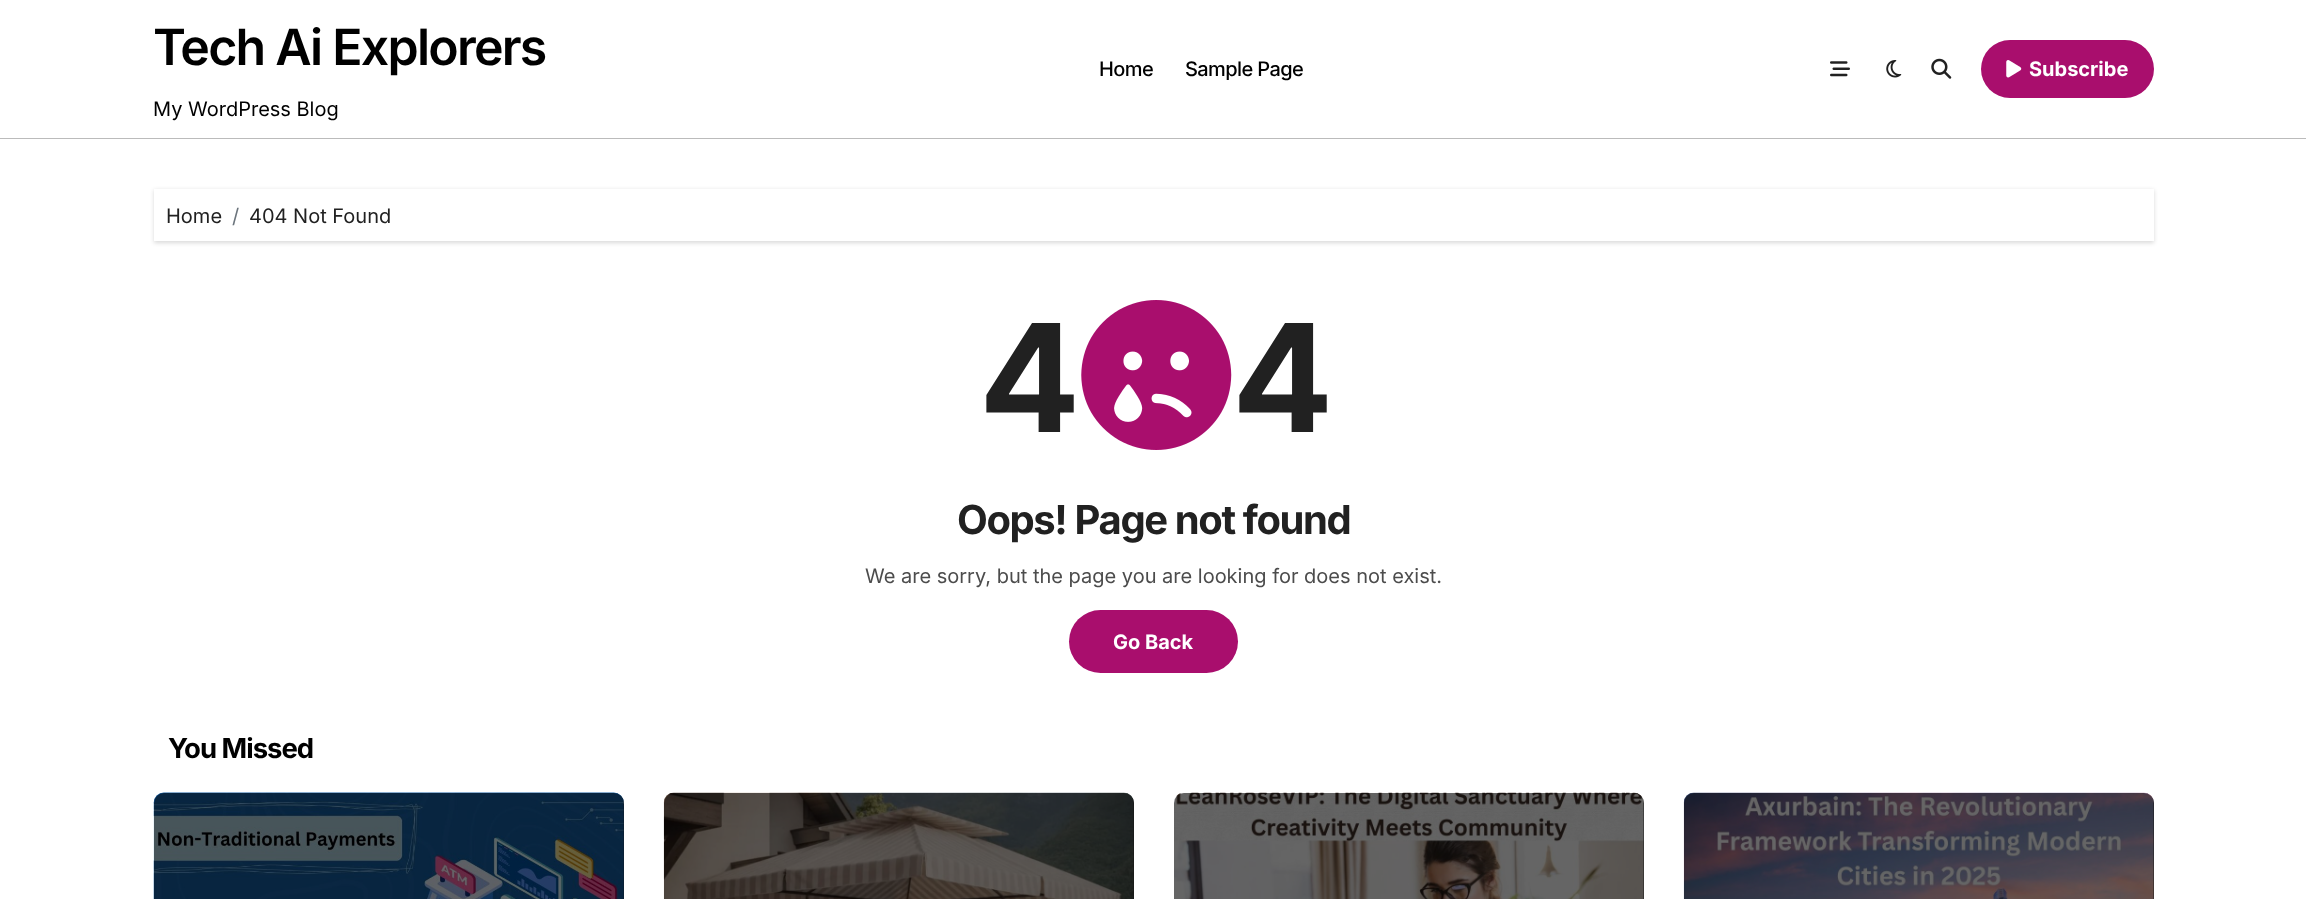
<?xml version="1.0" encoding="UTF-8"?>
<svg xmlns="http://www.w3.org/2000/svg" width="2306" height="899">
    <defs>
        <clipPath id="clip1"><path d="M 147 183 H 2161 V 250 H 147 Z M 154 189 H 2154 V 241 H 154 Z" clip-rule="evenodd"/></clipPath>
        <filter id="blur1" x="-50%" y="-200%" width="200%" height="500%"><feGaussianBlur stdDeviation="2"/></filter>
    </defs>
    <rect width="100%" height="100%" fill="#FFFFFF"/>
    <rect x="0" y="138" width="2306" height="1" fill="#BBBBBB"/>
    <text x="153" y="65" font-family="Inter" font-size="50" font-weight="600" letter-spacing="-1.75" fill="#000000">Tech Ai Explorers</text>
    <text x="153" y="116" font-family="Inter" font-size="20" fill="#000000">My WordPress Blog</text>
    <text x="1099" y="76" font-family="Inter" font-size="20" font-weight="500" letter-spacing="-0.6" fill="#000000">Home</text>
    <text x="1185" y="76" font-family="Inter" font-size="20" font-weight="500" letter-spacing="-0.6" fill="#000000">Sample Page</text>
    <image x="1830" y="61" width="20" height="16" href="img_01.png"/>
    <image x="1886" y="60" width="16" height="18" href="img_02.png"/>
    <image x="1931" y="58" width="21" height="21" href="img_03.png"/>
    <rect x="1981" y="40" width="173" height="58" rx="29" fill="#A90E6D"/>
    <image x="2006" y="60" width="16" height="18" href="img_04.png"/>
    <text x="2029" y="76" font-family="Inter" font-size="20" font-weight="700" fill="#FFFFFF">Subscribe</text>
    <g clip-path="url(#clip1)">
        <rect x="154" y="190" width="2000" height="53" fill="#000000" fill-opacity="0.15" filter="url(#blur1)"/>
    </g>
    <text x="166" y="223" font-family="Inter" font-size="20" fill="#212121">Home</text>
    <text x="232" y="223" font-family="Inter" font-size="20" fill="#6C757D">/</text>
    <text x="249" y="223" font-family="Inter" font-size="20" fill="#212121">404 Not Found</text>
    <text x="979" y="432" font-family="Inter" font-size="150" font-weight="700" letter-spacing="-5" fill="#212121">4</text>
    <image x="1081" y="300" width="151" height="150" href="img_05.png"/>
    <text x="1232" y="432" font-family="Inter" font-size="150" font-weight="700" letter-spacing="-5" fill="#212121">4</text>
    <text x="957" y="534" font-family="Inter" font-size="40" font-weight="700" letter-spacing="-1.4" fill="#212121">Oops! Page not found</text>
    <text x="865" y="583" font-family="Inter" font-size="20" fill="#4C4C4C">We are sorry, but the page you are looking for does not exist.</text>
    <rect x="1069" y="610" width="169" height="63" rx="31.5" fill="#A90E6D"/>
    <text x="1113" y="649" font-family="Inter" font-size="20" font-weight="700" fill="#FFFFFF">Go Back</text>
    <text x="168" y="758" font-family="Inter" font-size="27.5" font-weight="700" letter-spacing="-1" fill="#000000">You Missed</text>
    <rect x="154" y="793" width="470" height="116" rx="10" fill="#333333"/>
    <image x="153" y="792" width="471" height="107" href="img_06.png"/>
    <rect x="154" y="793" width="470" height="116" rx="10" fill="#000000" fill-opacity="0.6"/>
    <rect x="664" y="793" width="470" height="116" rx="10" fill="#333333"/>
    <image x="663" y="792" width="471" height="107" href="img_07.png"/>
    <rect x="664" y="793" width="470" height="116" rx="10" fill="#000000" fill-opacity="0.6"/>
    <rect x="1174" y="793" width="470" height="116" rx="10" fill="#333333"/>
    <image x="1174" y="792" width="470" height="107" href="img_08.png"/>
    <rect x="1174" y="793" width="470" height="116" rx="10" fill="#000000" fill-opacity="0.6"/>
    <rect x="1684" y="793" width="470" height="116" rx="10" fill="#333333"/>
    <image x="1683" y="792" width="471" height="107" href="img_09.png"/>
    <rect x="1684" y="793" width="470" height="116" rx="10" fill="#000000" fill-opacity="0.6"/>
</svg>
